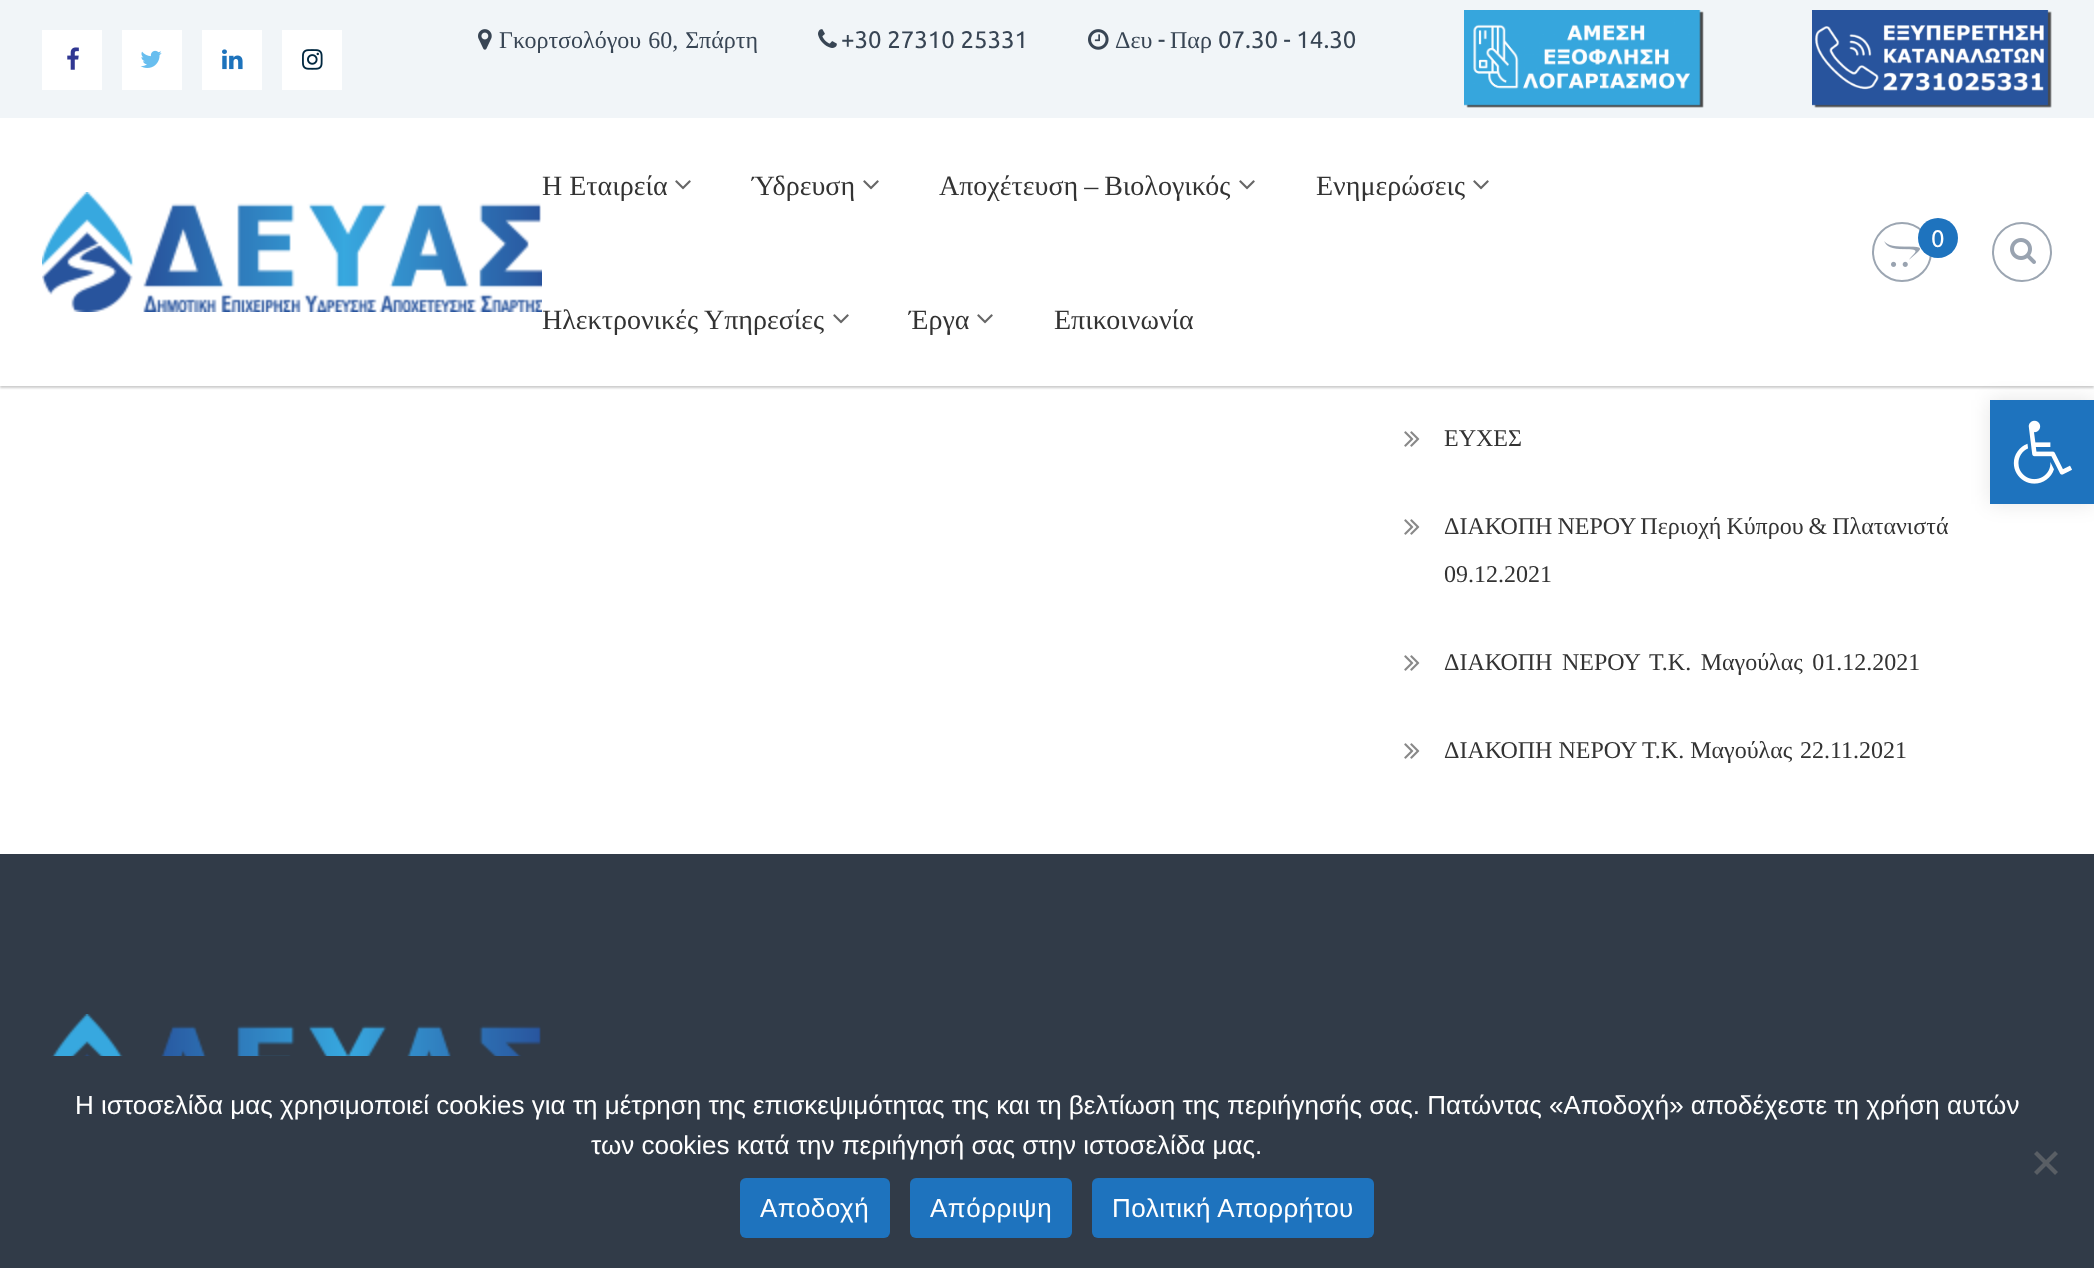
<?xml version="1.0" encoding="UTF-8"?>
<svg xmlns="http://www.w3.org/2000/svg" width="2094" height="1268">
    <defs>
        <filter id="blur1" x="-50%" y="-200%" width="200%" height="500%"><feGaussianBlur stdDeviation="1"/></filter>
        <filter id="blur2" x="-50%" y="-200%" width="200%" height="500%"><feGaussianBlur stdDeviation="10"/></filter>
    </defs>
    <rect width="100%" height="100%" fill="#FFFFFF"/>
    <rect x="0" y="0" width="2094" height="118" fill="#F1F5F8"/>
    <rect x="42" y="30" width="60" height="60" fill="#FFFFFF"/>
    <image x="67" y="47" width="12" height="23" href="img_01.png"/>
    <rect x="122" y="30" width="60" height="60" fill="#FFFFFF"/>
    <image x="140" y="50" width="22" height="18" href="img_02.png"/>
    <rect x="202" y="30" width="60" height="60" fill="#FFFFFF"/>
    <image x="222" y="49" width="21" height="21" href="img_03.png"/>
    <rect x="282" y="30" width="60" height="60" fill="#FFFFFF"/>
    <image x="302" y="49" width="21" height="21" href="img_04.png"/>
    <image x="478" y="29" width="14" height="21" href="img_05.png"/>
    <text x="499" y="48" word-spacing="1" font-family="Liberation Serif" font-size="24" fill="#384554">Γκορτσολόγου 60, Σπάρτη</text>
    <image x="818" y="29" width="19" height="19" href="img_06.png"/>
    <text x="841" y="48" font-family="Ubuntu" font-size="24" fill="#384554">+30 27310 25331</text>
    <image x="1088" y="29" width="21" height="21" href="img_07.png"/>
    <text x="1115" y="48" font-family="Liberation Serif" font-size="24" fill="#384554">Δευ</text>
    <text x="1158" y="48" font-family="Ubuntu" font-size="24" fill="#384554">-</text>
    <text x="1170" y="48" font-family="Liberation Serif" font-size="24" fill="#384554">Παρ</text>
    <text x="1218" y="48" font-family="Ubuntu" font-size="24" fill="#384554">07.30 - 14.30</text>
    <image x="1464" y="10" width="240" height="98" href="img_08.png"/>
    <image x="1812" y="10" width="240" height="98" href="img_09.png"/>
    <rect x="0" y="120" width="2094" height="268" fill="#000000" fill-opacity="0.2" filter="url(#blur1)"/>
    <rect x="0" y="118" width="2094" height="268" fill="#FFFFFF"/>
    <image x="42" y="192" width="500" height="120" href="img_10.png"/>
    <text x="542" y="195" font-family="Liberation Serif" font-size="28" fill="#333333">Η Εταιρεία</text>
    <image x="675" y="180" width="16" height="10" href="img_11.png"/>
    <text x="752" y="195" font-family="Liberation Serif" font-size="28" fill="#333333">Ύδρευση</text>
    <image x="863" y="180" width="16" height="10" href="img_11.png"/>
    <text x="939" y="195" word-spacing="-1" font-family="Liberation Serif" font-size="28" fill="#333333">Αποχέτευση – Βιολογικός</text>
    <image x="1239" y="180" width="16" height="10" href="img_11.png"/>
    <text x="1316" y="195" font-family="Liberation Serif" font-size="28" fill="#333333">Ενημερώσεις</text>
    <image x="1473" y="180" width="16" height="10" href="img_11.png"/>
    <text x="542" y="329" font-family="Liberation Serif" font-size="28" fill="#333333">Ηλεκτρονικές Υπηρεσίες</text>
    <image x="833" y="314" width="16" height="10" href="img_11.png"/>
    <text x="909" y="329" font-family="Liberation Serif" font-size="28" fill="#333333">Έργα</text>
    <image x="977" y="314" width="16" height="10" href="img_11.png"/>
    <text x="1054" y="329" font-family="Liberation Serif" font-size="28" fill="#333333">Επικοινωνία</text>
    <circle cx="1902" cy="252" r="29" fill="none" stroke="#9CA6B2" stroke-width="2"/>
    <image x="1884" y="241" width="36" height="26" href="img_12.png"/>
    <circle cx="1938" cy="238" r="20" fill="#1E73BE"/>
    <text x="1931" y="247" font-family="Ubuntu" font-size="24" fill="#FFFFFF">0</text>
    <circle cx="2022" cy="252" r="29" fill="none" stroke="#9CA6B2" stroke-width="2"/>
    <image x="2010" y="238" width="26" height="26" href="img_13.png"/>
    <image x="1404" y="431" width="16" height="16" href="img_14.png"/>
    <text x="1444" y="446" font-family="Liberation Serif" font-size="24" fill="#333333">ΕΥΧΕΣ</text>
    <image x="1404" y="519" width="16" height="16" href="img_14.png"/>
    <text x="1444" y="534" word-spacing="-1" font-family="Liberation Serif" font-size="24" fill="#333333">ΔΙΑΚΟΠΗ ΝΕΡΟΥ Περιοχή Κύπρου &amp; Πλατανιστά</text>
    <text x="1444" y="582" font-family="Liberation Serif" font-size="24" fill="#333333">09.12.2021</text>
    <image x="1404" y="655" width="16" height="16" href="img_14.png"/>
    <text x="1444" y="670" word-spacing="3.5" font-family="Liberation Serif" font-size="24" fill="#333333">ΔΙΑΚΟΠΗ ΝΕΡΟΥ Τ.Κ. Μαγούλας 01.12.2021</text>
    <image x="1404" y="743" width="16" height="16" href="img_14.png"/>
    <text x="1444" y="758" font-family="Liberation Serif" font-size="24" fill="#333333">ΔΙΑΚΟΠΗ ΝΕΡΟΥ Τ.Κ. Μαγούλας</text>
    <text x="1800" y="758" font-family="Liberation Serif" font-size="24" fill="#333333">22.11.2021</text>
    <rect x="0" y="854" width="2094" height="414" fill="#313B48"/>
    <image x="51" y="1014" width="490" height="42" href="img_15.png"/>
    <rect x="1990" y="400" width="104" height="104" fill="#000000" fill-opacity="0.1" filter="url(#blur2)"/>
    <rect x="1990" y="400" width="104" height="104" fill="#1E73BE"/>
    <image x="2013" y="420" width="59" height="64" href="img_16.png"/>
    <text x="75" y="1114" font-family="Liberation Sans" font-size="26" fill="#FFFFFF">Η ιστοσελίδα μας χρησιμοποιεί cookies για τη μέτρηση της επισκεψιμότητας της και τη βελτίωση της περιήγησής σας. Πατώντας «Αποδοχή» αποδέχεστε τη χρήση αυτών</text>
    <text x="591" y="1154" font-family="Liberation Sans" font-size="26" fill="#FFFFFF">των cookies κατά την περιήγησή σας στην ιστοσελίδα μας.</text>
    <path d="M 2055 1151 L 2058 1154 L 2037 1175 L 2034 1172 Z" fill="#595E64"/>
    <path d="M 2034 1154 L 2037 1151 L 2058 1172 L 2055 1175 Z" fill="#595E64"/>
    <rect x="740" y="1178" width="150" height="60" rx="6" fill="#1E73BE"/>
    <text x="760" y="1217" font-family="Liberation Sans" font-size="26" letter-spacing="0.5" fill="#FFFFFF">Αποδοχή</text>
    <rect x="910" y="1178" width="162" height="60" rx="6" fill="#1E73BE"/>
    <text x="930" y="1217" font-family="Liberation Sans" font-size="26" letter-spacing="0.5" fill="#FFFFFF">Απόρριψη</text>
    <rect x="1092" y="1178" width="282" height="60" rx="6" fill="#1E73BE"/>
    <text x="1112" y="1217" font-family="Liberation Sans" font-size="26" letter-spacing="0.5" fill="#FFFFFF">Πολιτική Απορρήτου</text>
</svg>
